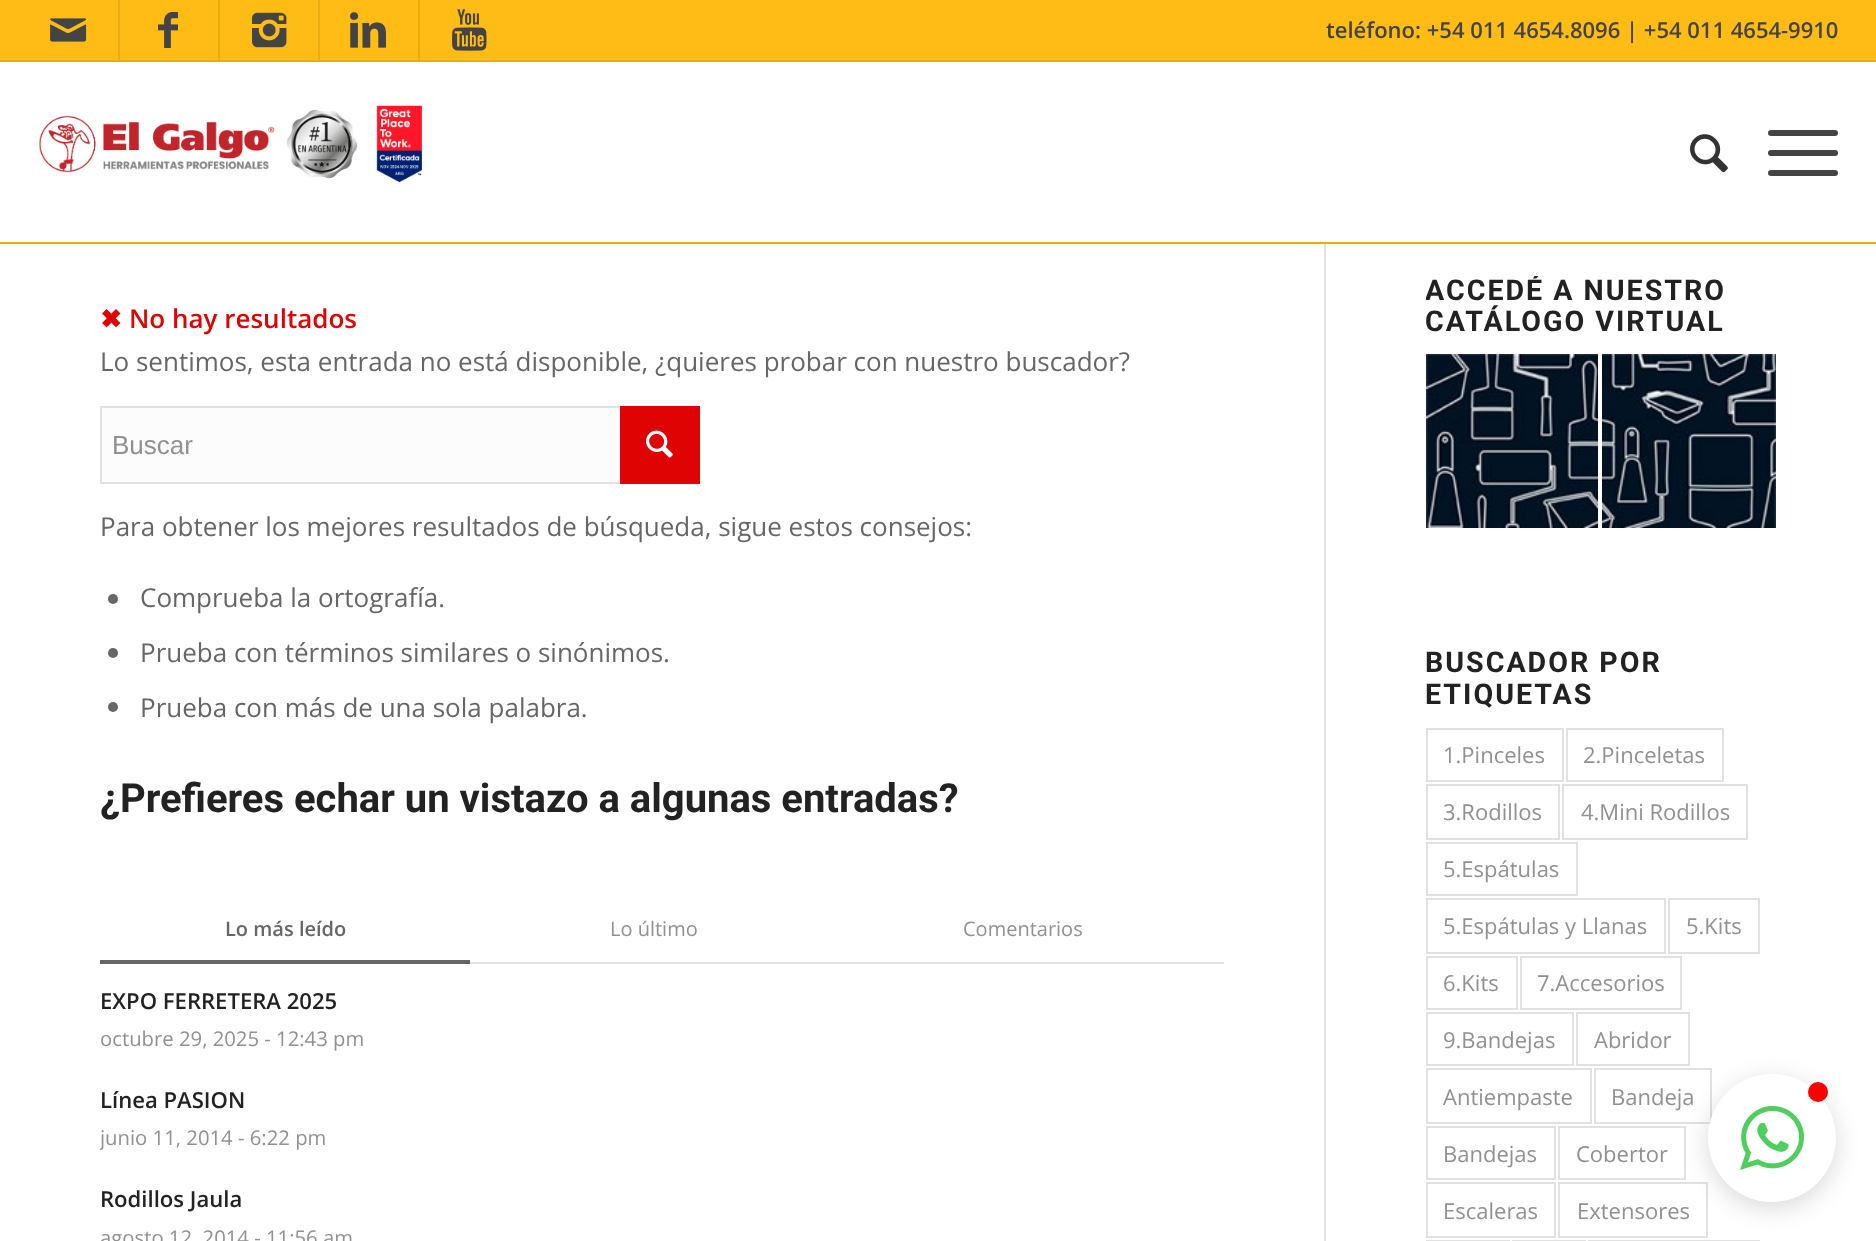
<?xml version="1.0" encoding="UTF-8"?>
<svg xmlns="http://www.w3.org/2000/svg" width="1876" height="1241">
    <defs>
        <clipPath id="clip1"><rect x="100" y="964" width="1124" height="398" rx="4"/></clipPath>
        <clipPath id="clip2"><rect x="1426" y="276" width="350" height="312"/></clipPath>
        <filter id="blur1" x="-50%" y="-200%" width="200%" height="500%"><feGaussianBlur stdDeviation="12"/></filter>
    </defs>
    <rect width="100%" height="100%" fill="#FFFFFF"/>
    <rect x="0" y="0" width="1876" height="60" fill="#FEBC15"/>
    <rect x="0" y="60" width="1876" height="2" fill="#EBAC0E"/>
    <rect x="118" y="0" width="2" height="60" fill="#EBAC0E"/>
    <image x="50" y="18" width="37" height="24" href="img_01.png"/>
    <rect x="218" y="0" width="2" height="60" fill="#EBAC0E"/>
    <image x="158" y="12" width="20" height="36" href="img_02.png"/>
    <rect x="318" y="0" width="2" height="60" fill="#EBAC0E"/>
    <image x="252" y="12" width="35" height="36" href="img_03.png"/>
    <rect x="418" y="0" width="2" height="60" fill="#EBAC0E"/>
    <image x="350" y="12" width="36" height="36" href="img_04.png"/>
    <image x="452" y="9" width="35" height="42" href="img_05.png"/>
    <text x="1326" y="38" font-family="Open Sans" font-size="22" font-weight="600" fill="#444444">teléfono: +54 011 4654.8096 | +54 011 4654-9910</text>
    <rect x="0" y="242" width="1876" height="2" fill="#EBAC0E"/>
    <image x="39" y="105" width="383" height="78" href="img_06.png"/>
    <image x="1690" y="134" width="38" height="39" href="img_07.png"/>
    <rect x="1768" y="150" width="70" height="6" rx="3" fill="#444444"/>
    <rect x="1768" y="130" width="70" height="6" rx="3" fill="#444444"/>
    <rect x="1768" y="170" width="70" height="6" rx="3" fill="#444444"/>
    <rect x="1324" y="244" width="2" height="997" fill="#E1E1E1"/>
    <text x="100" y="328" font-family="DejaVu Sans" font-size="26" font-weight="700" fill="#E00303">✖</text>
    <text x="129" y="328" font-family="Open Sans" font-size="26" font-weight="600" fill="#E00303">No hay resultados</text>
    <text x="100" y="371" font-family="Open Sans" font-size="26" fill="#666666">Lo sentimos, esta entrada no está disponible, ¿quieres probar con nuestro buscador?</text>
    <rect x="102" y="408" width="518" height="74" fill="#FCFCFC"/>
    <rect x="101" y="407" width="598" height="76" fill="none" stroke="#E1E1E1" stroke-width="2"/>
    <text x="112" y="454" font-family="Liberation Sans" font-size="26" fill="#919191">Buscar</text>
    <rect x="620" y="406" width="80" height="78" fill="#E00303"/>
    <image x="646" y="430" width="27" height="28" href="img_08.png"/>
    <text x="100" y="536" font-family="Open Sans" font-size="26" fill="#666666">Para obtener los mejores resultados de búsqueda, sigue estos consejos:</text>
    <circle cx="113" cy="599" r="5" fill="#666666"/>
    <text x="140" y="607" font-family="Open Sans" font-size="26" fill="#666666">Comprueba la ortografía.</text>
    <circle cx="113" cy="653" r="5" fill="#666666"/>
    <text x="140" y="662" font-family="Open Sans" font-size="26" fill="#666666">Prueba con términos similares o sinónimos.</text>
    <circle cx="113" cy="707" r="5" fill="#666666"/>
    <text x="140" y="717" font-family="Open Sans" font-size="26" fill="#666666">Prueba con más de una sola palabra.</text>
    <text x="100" y="812" font-family="Roboto" font-size="40" font-weight="700" fill="#222222">¿Prefieres echar un vistazo a algunas entradas?</text>
    <rect x="470" y="962" width="754" height="2" fill="#E1E1E1"/>
    <rect x="100" y="960" width="370" height="4" fill="#666666"/>
    <text x="225" y="936" font-family="Open Sans" font-size="20" font-weight="600" fill="#666666">Lo más leído</text>
    <text x="610" y="936" font-family="Open Sans" font-size="20" fill="#919191">Lo último</text>
    <text x="963" y="936" font-family="Open Sans" font-size="20" fill="#919191">Comentarios</text>
    <text x="100" y="1009" font-family="Open Sans" font-size="22.1" font-weight="600" fill="#222222">EXPO FERRETERA 2025</text>
    <text x="100" y="1046" font-family="Open Sans" font-size="20.3" fill="#919191">octubre 29, 2025 - 12:43 pm</text>
    <text x="100" y="1108" font-family="Open Sans" font-size="22.1" font-weight="600" fill="#222222">Línea PASION</text>
    <g clip-path="url(#clip1)">
        <text x="100" y="1145" font-family="Open Sans" font-size="20.3" fill="#919191">junio 11, 2014 - 6:22 pm</text>
    </g>
    <text x="100" y="1207" font-family="Open Sans" font-size="22.1" font-weight="600" fill="#222222">Rodillos Jaula</text>
    <text x="100" y="1245" font-family="Open Sans" font-size="20.3" fill="#919191">agosto 12, 2014 - 11:56 am</text>
    <g clip-path="url(#clip2)">
        <text x="1425" y="300" font-family="Roboto" font-size="28.6" font-weight="700" letter-spacing="2" fill="#222222">ACCEDÉ A NUESTRO</text>
    </g>
    <text x="1425" y="331" font-family="Roboto" font-size="28.6" font-weight="700" letter-spacing="2" fill="#222222">CATÁLOGO VIRTUAL</text>
    <image x="1426" y="354" width="172" height="174" href="img_09.png"/>
    <image x="1602" y="354" width="174" height="174" href="img_10.png"/>
    <text font-family="Roboto" font-size="28.6" font-weight="700" letter-spacing="2" fill="#222222">
        <tspan x="1425" y="672">BUSCADOR POR</tspan>
        <tspan x="1425" y="704">ETIQUETAS</tspan>
    </text>
    <rect x="1427" y="729" width="136" height="52" fill="none" stroke="#E1E1E1" stroke-width="2"/>
    <text x="1443" y="763" font-family="Open Sans" font-size="22" fill="#919191">1.Pinceles</text>
    <rect x="1567" y="729" width="156" height="52" fill="none" stroke="#E1E1E1" stroke-width="2"/>
    <text x="1583" y="763" font-family="Open Sans" font-size="22" fill="#919191">2.Pinceletas</text>
    <rect x="1427" y="785" width="132" height="54" fill="none" stroke="#E1E1E1" stroke-width="2"/>
    <text x="1443" y="820" font-family="Open Sans" font-size="22" fill="#919191">3.Rodillos</text>
    <rect x="1563" y="785" width="184" height="54" fill="none" stroke="#E1E1E1" stroke-width="2"/>
    <text x="1581" y="820" font-family="Open Sans" font-size="22" fill="#919191">4.Mini Rodillos</text>
    <rect x="1427" y="843" width="150" height="52" fill="none" stroke="#E1E1E1" stroke-width="2"/>
    <text x="1443" y="877" font-family="Open Sans" font-size="22" fill="#919191">5.Espátulas</text>
    <rect x="1427" y="899" width="238" height="54" fill="none" stroke="#E1E1E1" stroke-width="2"/>
    <text x="1443" y="934" font-family="Open Sans" font-size="22" fill="#919191">5.Espátulas y Llanas</text>
    <rect x="1669" y="899" width="90" height="54" fill="none" stroke="#E1E1E1" stroke-width="2"/>
    <text x="1686" y="934" font-family="Open Sans" font-size="22" fill="#919191">5.Kits</text>
    <rect x="1427" y="957" width="90" height="52" fill="none" stroke="#E1E1E1" stroke-width="2"/>
    <text x="1443" y="991" font-family="Open Sans" font-size="22" fill="#919191">6.Kits</text>
    <rect x="1521" y="957" width="160" height="52" fill="none" stroke="#E1E1E1" stroke-width="2"/>
    <text x="1537" y="991" font-family="Open Sans" font-size="22" fill="#919191">7.Accesorios</text>
    <rect x="1427" y="1013" width="146" height="52" fill="none" stroke="#E1E1E1" stroke-width="2"/>
    <text x="1443" y="1048" font-family="Open Sans" font-size="22" fill="#919191">9.Bandejas</text>
    <rect x="1577" y="1013" width="112" height="52" fill="none" stroke="#E1E1E1" stroke-width="2"/>
    <text x="1594" y="1048" font-family="Open Sans" font-size="22" fill="#919191">Abridor</text>
    <rect x="1427" y="1069" width="164" height="54" fill="none" stroke="#E1E1E1" stroke-width="2"/>
    <text x="1443" y="1105" font-family="Open Sans" font-size="22" fill="#919191">Antiempaste</text>
    <rect x="1595" y="1069" width="116" height="54" fill="none" stroke="#E1E1E1" stroke-width="2"/>
    <text x="1611" y="1105" font-family="Open Sans" font-size="22" fill="#919191">Bandeja</text>
    <rect x="1427" y="1127" width="128" height="52" fill="none" stroke="#E1E1E1" stroke-width="2"/>
    <text x="1443" y="1162" font-family="Open Sans" font-size="22" fill="#919191">Bandejas</text>
    <rect x="1559" y="1127" width="126" height="52" fill="none" stroke="#E1E1E1" stroke-width="2"/>
    <text x="1576" y="1162" font-family="Open Sans" font-size="22" fill="#919191">Cobertor</text>
    <rect x="1427" y="1183" width="128" height="54" fill="none" stroke="#E1E1E1" stroke-width="2"/>
    <text x="1443" y="1219" font-family="Open Sans" font-size="22" fill="#919191">Escaleras</text>
    <rect x="1559" y="1183" width="148" height="54" fill="none" stroke="#E1E1E1" stroke-width="2"/>
    <text x="1577" y="1219" font-family="Open Sans" font-size="22" fill="#919191">Extensores</text>
    <rect x="1427" y="1241" width="82" height="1" fill="none" stroke="#E1E1E1" stroke-width="2"/>
    <rect x="1513" y="1241" width="72" height="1" fill="none" stroke="#E1E1E1" stroke-width="2"/>
    <rect x="1589" y="1241" width="170" height="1" fill="none" stroke="#E1E1E1" stroke-width="2"/>
    <rect x="1708" y="1080" width="128" height="128" rx="64" fill="#000000" fill-opacity="0.15" filter="url(#blur1)"/>
    <circle cx="1772" cy="1138" r="64" fill="#FFFFFF"/>
    <circle cx="1818" cy="1092" r="10" fill="#FF0000"/>
    <image x="1740" y="1106" width="64" height="64" href="img_11.png"/>
</svg>
